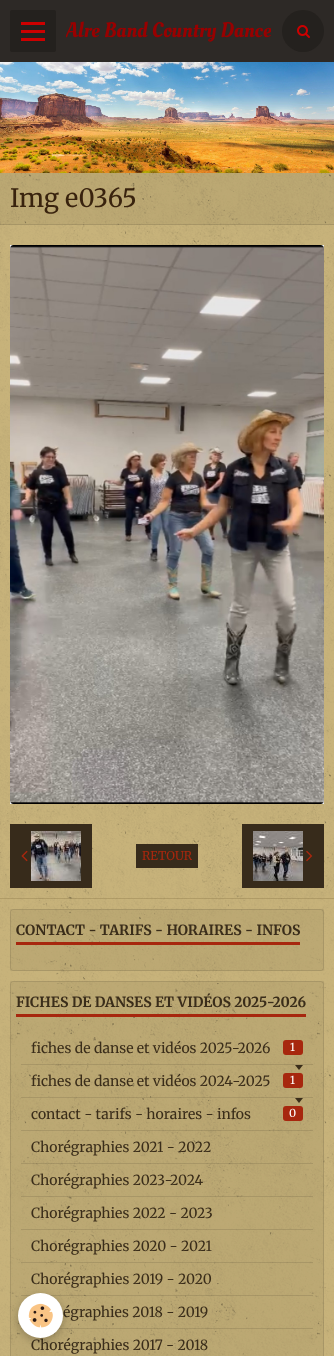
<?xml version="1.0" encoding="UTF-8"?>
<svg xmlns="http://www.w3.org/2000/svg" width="334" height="1356">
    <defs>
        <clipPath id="clip1"><rect x="66" y="18" width="205" height="26"/></clipPath>
        <filter id="blur1" x="-50%" y="-200%" width="200%" height="500%"><feGaussianBlur stdDeviation="5"/></filter>
    </defs>
    <rect width="100%" height="100%" fill="#CBB67D"/>
    <image x="0" y="173" width="334" height="1183" href="img_01.png"/>
    <rect x="0" y="0" width="334" height="62" fill="#2D2926"/>
    <rect x="10" y="10" width="46" height="42" rx="2" fill="#24211E"/>
    <rect x="21" y="30" width="24" height="3" fill="#CC0000"/>
    <rect x="21" y="22" width="24" height="3" fill="#CC0000"/>
    <rect x="21" y="38" width="24" height="3" fill="#CC0000"/>
    <g clip-path="url(#clip1)">
        <text x="66" y="37" font-family="Oleo Script" font-size="21" fill="#990000">Alre Band Country Dance</text>
    </g>
    <circle cx="303" cy="31" r="21" fill="#24211E"/>
    <image x="297" y="25" width="13" height="13" href="img_02.png"/>
    <image x="0" y="62" width="334" height="111" href="img_03.png"/>
    <rect x="0" y="173" width="334" height="52" fill="#000000" fill-opacity="0.05"/>
    <rect x="0" y="224" width="334" height="1" fill="#000000" fill-opacity="0.1"/>
    <text x="10" y="207" font-family="Merriweather" font-size="25.25" fill="#39230E">Img e0365</text>
    <image x="10" y="245" width="314" height="559" href="img_04.png"/>
    <rect x="10" y="824" width="82" height="64" fill="#372B1B"/>
    <image x="21" y="850" width="7" height="12" href="img_05.png"/>
    <image x="31" y="831" width="50" height="50" href="img_06.png"/>
    <rect x="136" y="844" width="62" height="24" fill="#372B1B"/>
    <text x="142" y="860" font-family="Merriweather" font-size="12" fill="#A7270E">RETOUR</text>
    <rect x="242" y="824" width="82" height="64" fill="#372B1B"/>
    <image x="253" y="831" width="50" height="50" href="img_07.png"/>
    <image x="306" y="850" width="7" height="12" href="img_08.png"/>
    <rect x="0" y="898" width="334" height="1" fill="#5A471C" fill-opacity="0.2"/>
    <rect x="10" y="909" width="314" height="62" fill="#000000" fill-opacity="0.05"/>
    <rect x="10.5" y="909.5" width="313" height="61" rx="2.5" fill="none" stroke="#000000" stroke-opacity="0.1"/>
    <text x="16" y="935" font-family="Merriweather" font-size="14" font-weight="700" fill="#3A2D1A">CONTACT - TARIFS - HORAIRES - INFOS</text>
    <rect x="16" y="942" width="284" height="3" fill="#A7270E"/>
    <rect x="10" y="981" width="314" height="375" fill="#000000" fill-opacity="0.05"/>
    <rect x="10.5" y="981.5" width="313" height="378" rx="2.5" fill="none" stroke="#000000" stroke-opacity="0.1"/>
    <text x="16" y="1007" font-family="Merriweather" font-size="14" font-weight="700" fill="#3A2D1A">FICHES DE DANSES ET VIDÉOS 2025-2026</text>
    <rect x="16" y="1014" width="290" height="3" fill="#A7270E"/>
    <rect x="21" y="1064" width="292" height="1" fill="#000000" fill-opacity="0.1"/>
    <text x="31" y="1053" font-family="Merriweather" font-size="14" fill="#3A2D1A">fiches de danse et vidéos 2025-2026</text>
    <rect x="283" y="1040" width="20" height="15" rx="3" fill="#A7270E"/>
    <text x="290" y="1051" font-family="Merriweather" font-size="11" fill="#FFFFFF">1</text>
    <path d="M 295 1065 H 303 L 299 1070 Z" fill="#3A2D1A"/>
    <rect x="21" y="1097" width="292" height="1" fill="#000000" fill-opacity="0.1"/>
    <text x="31" y="1086" font-family="Merriweather" font-size="14" fill="#3A2D1A">fiches de danse et vidéos 2024-2025</text>
    <rect x="283" y="1073" width="20" height="15" rx="3" fill="#A7270E"/>
    <text x="290" y="1084" font-family="Merriweather" font-size="11" fill="#FFFFFF">1</text>
    <path d="M 295 1098 H 303 L 299 1103 Z" fill="#3A2D1A"/>
    <rect x="21" y="1130" width="292" height="1" fill="#000000" fill-opacity="0.1"/>
    <text x="31" y="1119" font-family="Merriweather" font-size="14" fill="#3A2D1A">contact - tarifs - horaires - infos</text>
    <rect x="283" y="1106" width="20" height="15" rx="3" fill="#A7270E"/>
    <text x="289" y="1117" font-family="Merriweather" font-size="11" fill="#FFFFFF">0</text>
    <rect x="21" y="1163" width="292" height="1" fill="#000000" fill-opacity="0.1"/>
    <text x="31" y="1152" font-family="Merriweather" font-size="14" fill="#3A2D1A">Chorégraphies 2021 - 2022</text>
    <rect x="21" y="1196" width="292" height="1" fill="#000000" fill-opacity="0.1"/>
    <text x="31" y="1185" font-family="Merriweather" font-size="14" fill="#3A2D1A">Chorégraphies 2023-2024</text>
    <rect x="21" y="1229" width="292" height="1" fill="#000000" fill-opacity="0.1"/>
    <text x="31" y="1218" font-family="Merriweather" font-size="14" fill="#3A2D1A">Chorégraphies 2022 - 2023</text>
    <rect x="21" y="1262" width="292" height="1" fill="#000000" fill-opacity="0.1"/>
    <text x="31" y="1251" font-family="Merriweather" font-size="14" fill="#3A2D1A">Chorégraphies 2020 - 2021</text>
    <rect x="21" y="1295" width="292" height="1" fill="#000000" fill-opacity="0.1"/>
    <text x="31" y="1284" font-family="Merriweather" font-size="14" fill="#3A2D1A">Chorégraphies 2019 - 2020</text>
    <rect x="21" y="1328" width="292" height="1" fill="#000000" fill-opacity="0.1"/>
    <text x="63" y="1317" font-family="Merriweather" font-size="14" fill="#3A2D1A">égraphies 2018 - 2019</text>
    <text x="31" y="1350" font-family="Merriweather" font-size="14" fill="#3A2D1A">Chorégraphies 2017 - 2018</text>
    <rect x="18" y="1296" width="45" height="45" rx="22.5" fill="#000000" fill-opacity="0.24" filter="url(#blur1)"/>
    <circle cx="40.5" cy="1315.5" r="22.5" fill="#FFFFFF"/>
    <image x="28" y="1303" width="25" height="25" href="img_09.png"/>
</svg>
